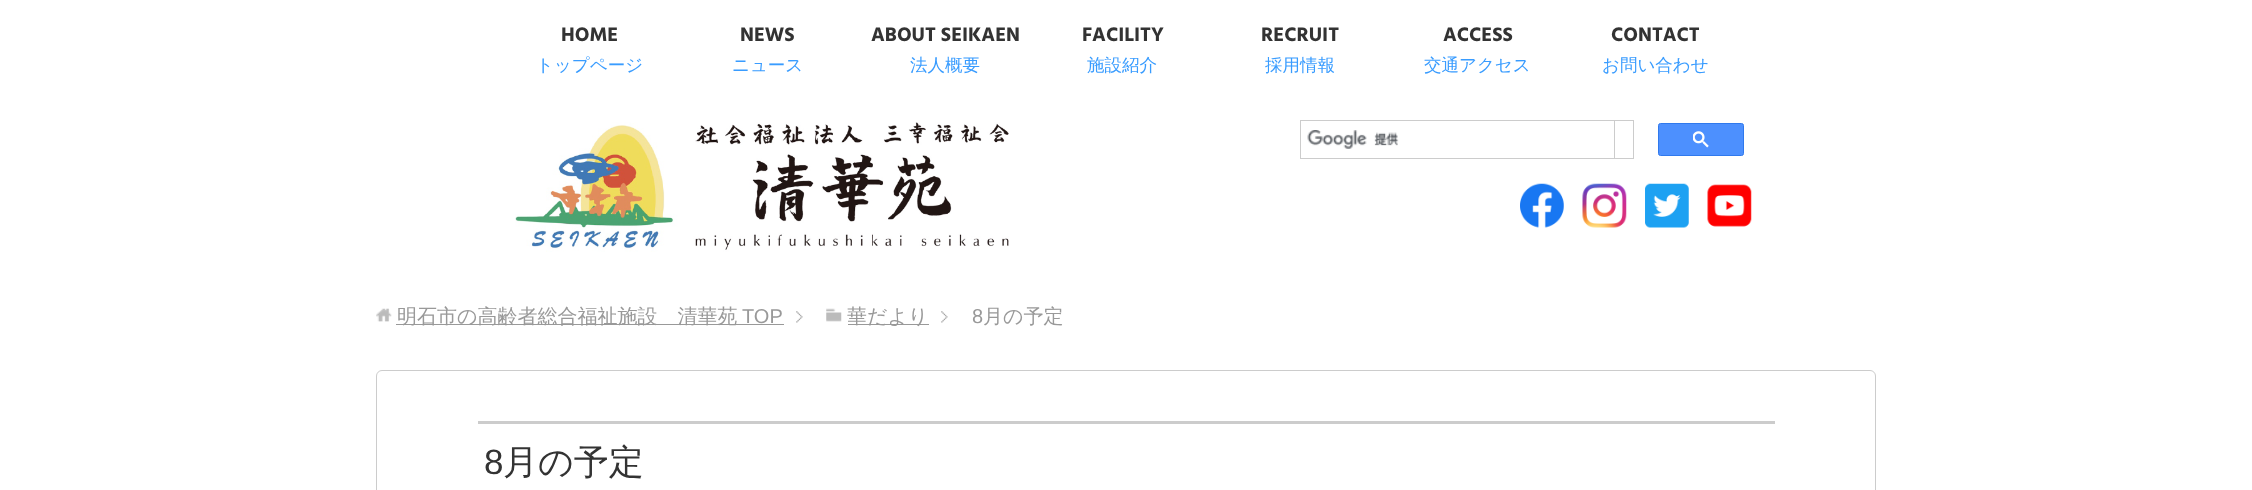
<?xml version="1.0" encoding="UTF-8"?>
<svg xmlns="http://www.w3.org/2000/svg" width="2252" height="490">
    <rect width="100%" height="100%" fill="#FFFFFF"/>
    <text x="561" y="41" font-family="Hind" font-size="20" font-weight="700" fill="#333333">HOME</text>
    <text x="536" y="71" font-family="WenQuanYi Zen Hei" font-size="17.5" font-weight="500" fill="#399CFF">トップページ</text>
    <text x="740" y="41" font-family="Hind" font-size="20" font-weight="700" fill="#333333">NEWS</text>
    <text x="732" y="71" font-family="WenQuanYi Zen Hei" font-size="17.5" font-weight="500" fill="#399CFF">ニュース</text>
    <text x="871" y="41" font-family="Hind" font-size="20" font-weight="700" fill="#333333">ABOUT SEIKAEN</text>
    <text x="910" y="71" font-family="WenQuanYi Zen Hei" font-size="17.5" font-weight="500" fill="#399CFF">法人概要</text>
    <text x="1082" y="41" font-family="Hind" font-size="20" font-weight="700" fill="#333333">FACILITY</text>
    <text x="1087" y="71" font-family="WenQuanYi Zen Hei" font-size="17.5" font-weight="500" fill="#399CFF">施設紹介</text>
    <text x="1261" y="41" font-family="Hind" font-size="20" font-weight="700" fill="#333333">RECRUIT</text>
    <text x="1265" y="71" font-family="WenQuanYi Zen Hei" font-size="17.5" font-weight="500" fill="#399CFF">採用情報</text>
    <text x="1443" y="41" font-family="Hind" font-size="20" font-weight="700" fill="#333333">ACCESS</text>
    <text x="1424" y="71" font-family="WenQuanYi Zen Hei" font-size="17.5" font-weight="500" fill="#399CFF">交通アクセス</text>
    <text x="1611" y="41" font-family="Hind" font-size="20" font-weight="700" fill="#333333">CONTACT</text>
    <text x="1602" y="71" font-family="WenQuanYi Zen Hei" font-size="17.5" font-weight="500" fill="#399CFF">お問い合わせ</text>
    <image x="515" y="122" width="494" height="130" href="img_01.png"/>
    <rect x="1300" y="120" width="334" height="1" fill="#CCCCCC"/>
    <rect x="1633" y="120" width="1" height="39" fill="#CCCCCC"/>
    <rect x="1300" y="158" width="334" height="1" fill="#CCCCCC"/>
    <rect x="1300" y="120" width="1" height="39" fill="#CCCCCC"/>
    <rect x="1614" y="120" width="1" height="39" fill="#CCCCCC"/>
    <image x="1307" y="130" width="92" height="19" href="img_02.png"/>
    <rect x="1658.5" y="123.5" width="85" height="32" rx="2" fill="#4D90FE" stroke="#3079ED"/>
    <image x="1693" y="131" width="16" height="17" href="img_03.png"/>
    <image x="1520" y="183" width="44" height="45" href="img_04.png"/>
    <image x="1582" y="183" width="45" height="45" href="img_05.png"/>
    <image x="1645" y="183" width="44" height="45" href="img_06.png"/>
    <image x="1707" y="184" width="45" height="43" href="img_07.png"/>
    <image x="796" y="311" width="7" height="12" href="img_08.png"/>
    <image x="376" y="308" width="16" height="14" href="img_09.png"/>
    <rect x="396" y="324" width="388" height="1" fill="#999999"/>
    <text x="397" y="323" font-family="WenQuanYi Zen Hei" font-size="20" font-weight="500" fill="#999999">明石市の高齢者総合福祉施設　清華苑</text>
    <text x="742" y="323" font-family="Liberation Sans" font-size="20" fill="#999999">TOP</text>
    <image x="941" y="311" width="7" height="12" href="img_08.png"/>
    <image x="826" y="308" width="16" height="14" href="img_10.png"/>
    <rect x="848" y="324" width="81" height="1" fill="#999999"/>
    <text x="847" y="323" font-family="WenQuanYi Zen Hei" font-size="20" font-weight="500" fill="#999999">華だより</text>
    <text x="972" y="323" font-family="Liberation Sans" font-size="20" fill="#999999">8</text>
    <text x="983" y="323" font-family="WenQuanYi Zen Hei" font-size="20" font-weight="500" fill="#999999">月の予定</text>
    <rect x="376.5" y="370.5" width="1499" height="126" rx="5.5" fill="none" stroke="#CCCCCC"/>
    <rect x="478" y="421" width="1297" height="3" fill="#CCCCCC"/>
    <text x="484" y="474" font-family="Liberation Sans" font-size="35" fill="#333333">8</text>
    <text x="503" y="474" font-family="WenQuanYi Zen Hei" font-size="35" font-weight="500" fill="#333333">月の予定</text>
</svg>
